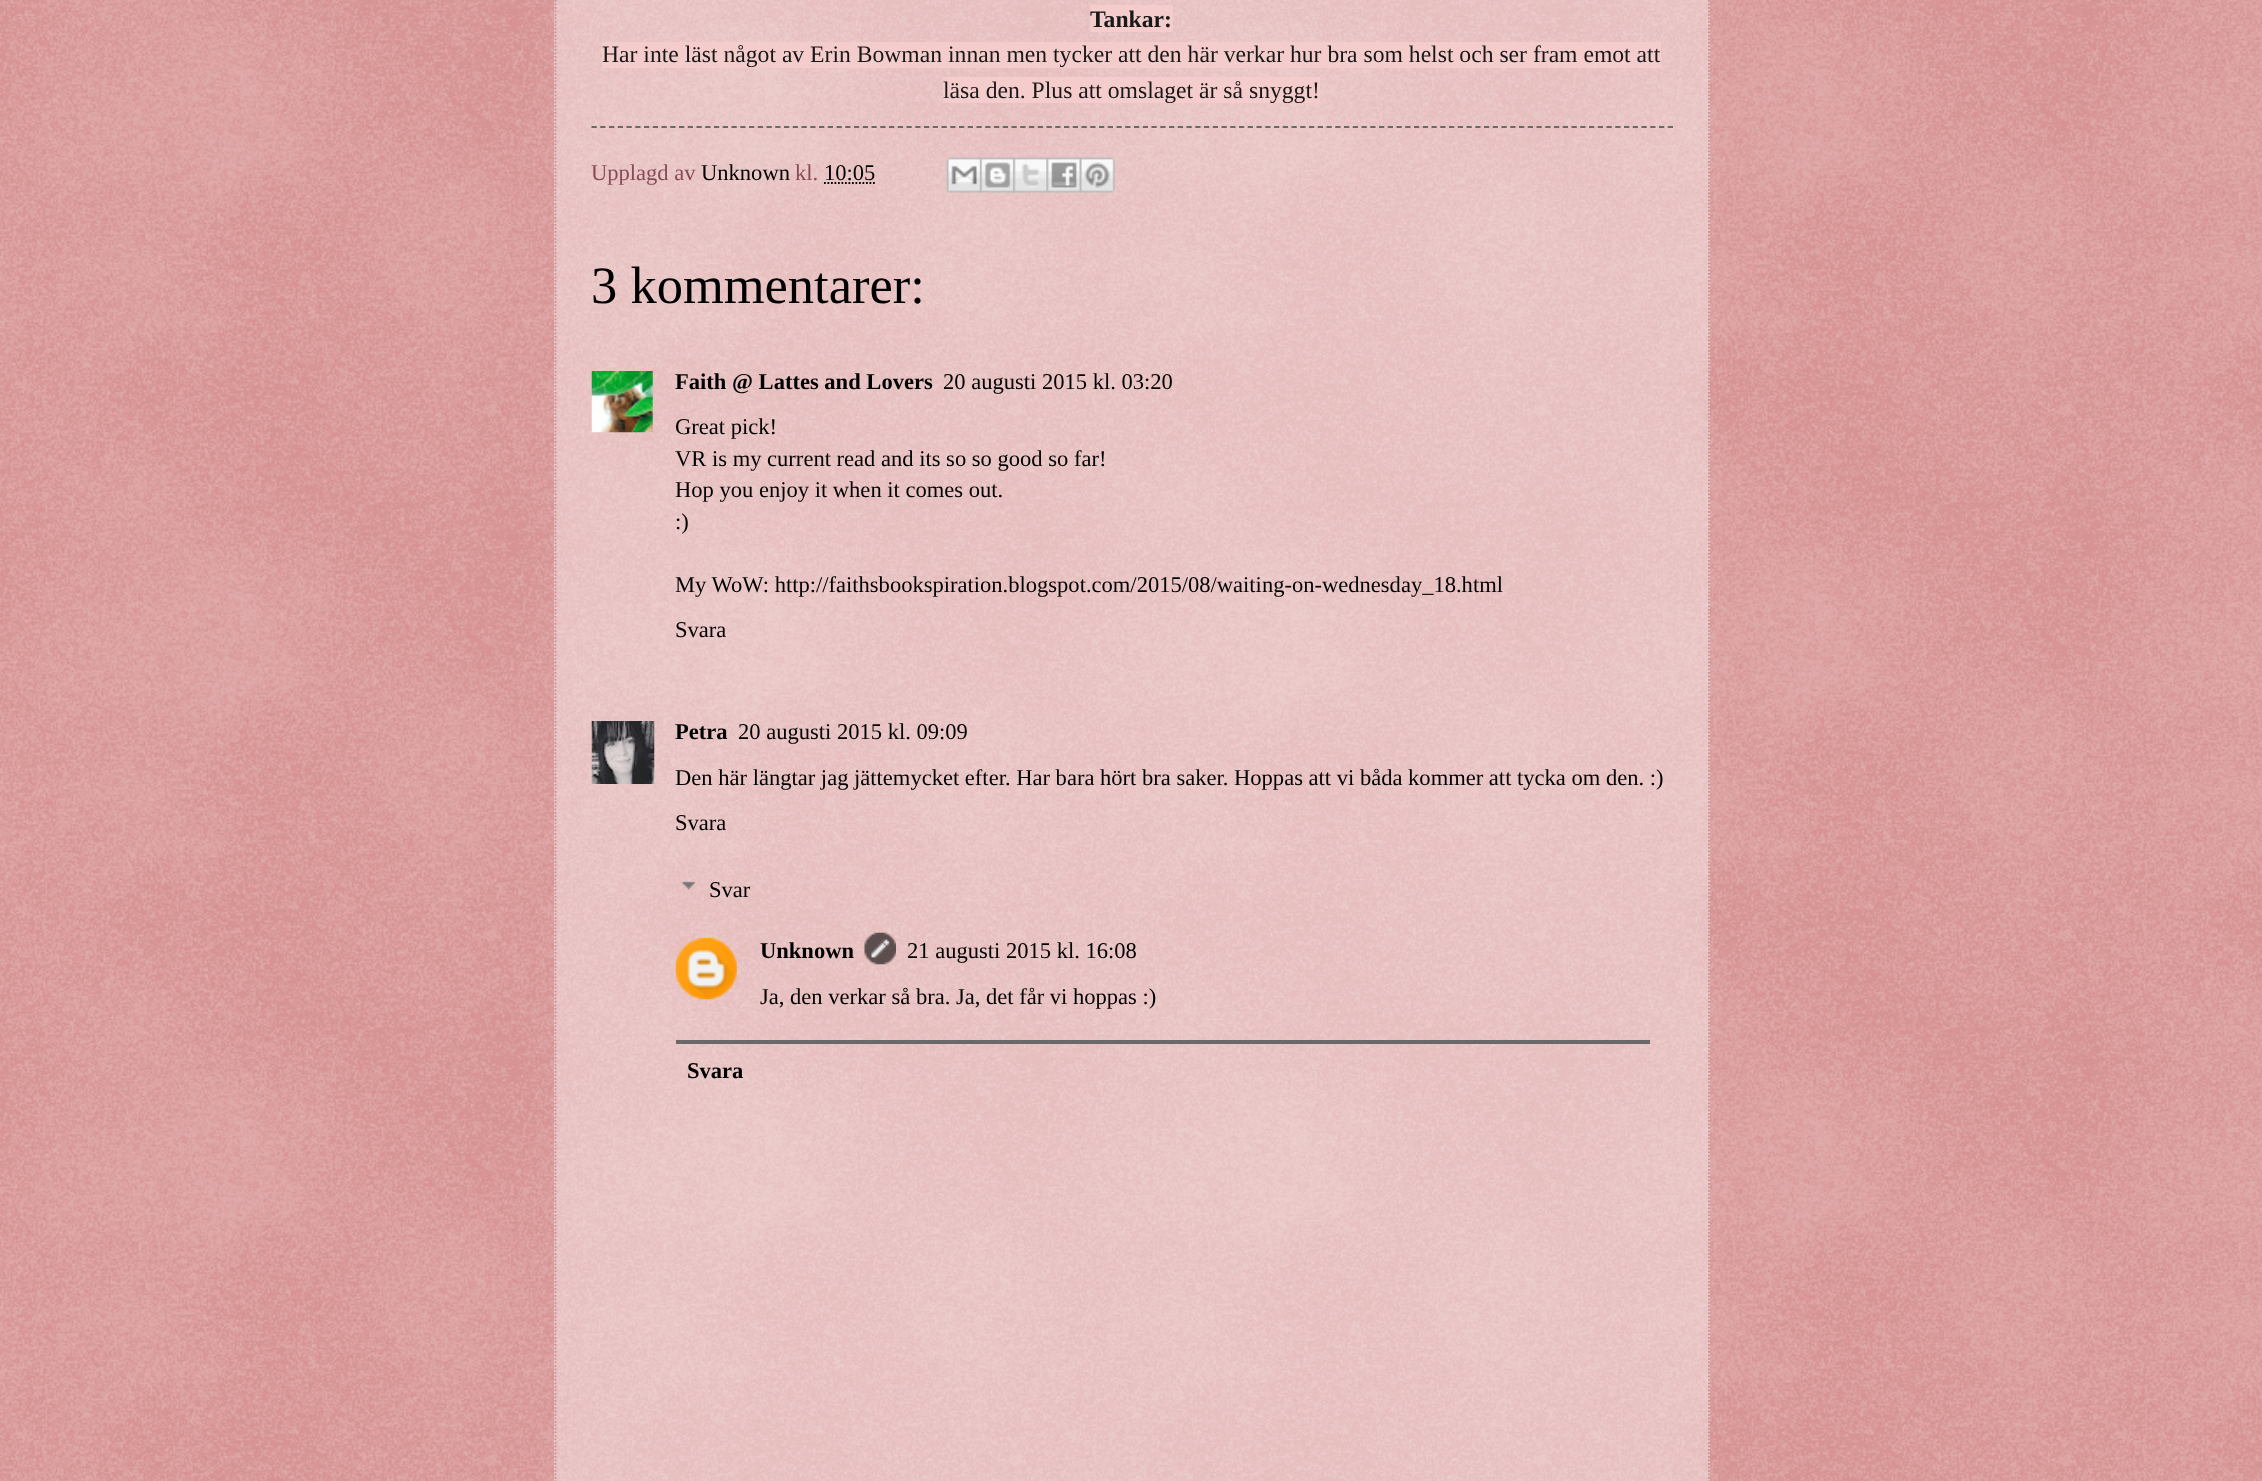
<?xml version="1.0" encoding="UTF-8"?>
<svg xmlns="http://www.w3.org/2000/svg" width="2262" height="1481">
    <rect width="100%" height="100%" fill="#BA4646"/>
    <image x="0" y="0" width="2262" height="1481" href="img_01.png"/>
    <rect x="554" y="0" width="1156" height="1481" fill="#FFFFFF" fill-opacity="0.4"/>
    <path d="M 1709 -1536.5 V 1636" fill="none" stroke="#C89194" stroke-width="1.8" stroke-dasharray="1.75 1.75"/>
    <path d="M 555.5 -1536.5 V 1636" fill="none" stroke="#C89194" stroke-width="1.8" stroke-dasharray="1.75 1.75"/>
    <rect x="1090" y="5" width="83" height="27" fill="#F4CCCC"/>
    <text x="1090" y="27" font-family="Liberation Serif" font-size="23.65" font-weight="700" fill="#181818">Tankar:</text>
    <rect x="602" y="42" width="1059" height="26" fill="#F4CCCC"/>
    <text x="602" y="62" font-family="Liberation Serif" font-size="23.65" fill="#181818">Har inte läst något av Erin Bowman innan men tycker att den här verkar hur bra som helst och ser fram emot att</text>
    <rect x="943" y="77" width="377" height="26" fill="#F4CCCC"/>
    <text x="943" y="98" font-family="Liberation Serif" font-size="23.65" fill="#181818">läsa den. Plus att omslaget är så snyggt!</text>
    <path d="M 591.5 127 H 1673" fill="none" stroke="#696969" stroke-width="1.8" stroke-dasharray="5.25 3.5"/>
    <text x="591" y="180" font-family="Liberation Serif" font-size="22.55" fill="#874B58">Upplagd av</text>
    <text x="701" y="180" font-family="Liberation Serif" font-size="22.55" fill="#000000">Unknown</text>
    <text x="795" y="180" font-family="Liberation Serif" font-size="22.55" fill="#874B58">kl.</text>
    <text x="824" y="180" font-family="Liberation Serif" font-size="22.55" fill="#000000">10:05</text>
    <path d="M 824 183 H 875.5" fill="none" stroke="#000000" stroke-width="1.8" stroke-dasharray="1.75 1.75"/>
    <image x="946" y="157" width="36" height="36" href="img_02.png"/>
    <image x="980" y="157" width="35" height="36" href="img_03.png"/>
    <image x="1013" y="157" width="36" height="36" href="img_04.png"/>
    <image x="1046" y="157" width="36" height="36" href="img_05.png"/>
    <image x="1079" y="157" width="36" height="36" href="img_06.png"/>
    <text x="591" y="303" font-family="Liberation Serif" font-size="52.5" fill="#000000">3 kommentarer:</text>
    <image x="591" y="371" width="62" height="62" href="img_07.png"/>
    <text x="675" y="389" font-family="Liberation Serif" font-size="22.55" font-weight="700" fill="#000000">Faith @ Lattes and Lovers</text>
    <text x="943" y="389" font-family="Liberation Serif" font-size="22.55" fill="#000000">20 augusti 2015 kl. 03:20</text>
    <text font-family="Liberation Serif" font-size="22.55" fill="#000000">
        <tspan x="675" y="434">Great pick!</tspan>
        <tspan x="675" y="466">VR is my current read and its so so good so far!</tspan>
        <tspan x="675" y="497">Hop you enjoy it when it comes out.</tspan>
        <tspan x="675" y="529">:)</tspan>
    </text>
    <text font-family="Liberation Serif" font-size="22.55" fill="#000000">
        <tspan x="675" y="592">My WoW: http://faithsbookspiration.blogspot.com/2015/08/waiting-on-wednesday_18.html</tspan>
        <tspan x="675" y="637">Svara</tspan>
    </text>
    <image x="591" y="721" width="64" height="63" href="img_08.png"/>
    <text x="675" y="739" font-family="Liberation Serif" font-size="22.55" font-weight="700" fill="#000000">Petra</text>
    <text x="738" y="739" font-family="Liberation Serif" font-size="22.55" fill="#000000">20 augusti 2015 kl. 09:09</text>
    <text font-family="Liberation Serif" font-size="22.55" fill="#000000">
        <tspan x="675" y="785">Den här längtar jag jättemycket efter. Har bara hört bra saker. Hoppas att vi båda kommer att tycka om den. :)</tspan>
        <tspan x="675" y="830">Svara</tspan>
    </text>
    <image x="682" y="881" width="13" height="9" href="img_09.png"/>
    <text x="709" y="897" font-family="Liberation Serif" font-size="22.55" fill="#000000">Svar</text>
    <image x="675" y="938" width="62" height="62" href="img_10.png"/>
    <text x="760" y="958" font-family="Liberation Serif" font-size="22.55" font-weight="700" fill="#000000">Unknown</text>
    <image x="864" y="932" width="32" height="33" href="img_11.png"/>
    <text x="907" y="958" font-family="Liberation Serif" font-size="22.55" fill="#000000">21 augusti 2015 kl. 16:08</text>
    <text x="760" y="1004" font-family="Liberation Serif" font-size="22.55" fill="#000000">Ja, den verkar så bra. Ja, det får vi hoppas :)</text>
    <rect x="676" y="1040" width="974" height="4" fill="#696969"/>
    <text x="687" y="1078" font-family="Liberation Serif" font-size="22.55" font-weight="700" fill="#000000">Svara</text>
</svg>
